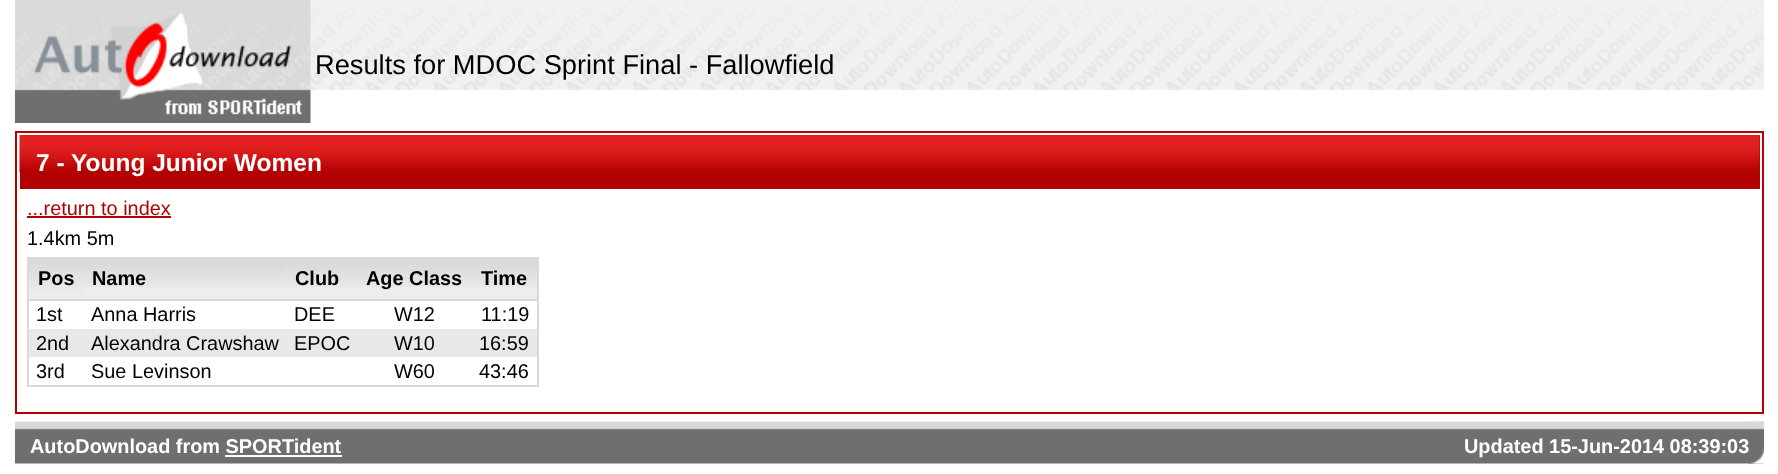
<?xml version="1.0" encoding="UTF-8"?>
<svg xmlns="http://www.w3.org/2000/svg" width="1778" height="474">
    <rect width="100%" height="100%" fill="#FFFFFF"/>
    <image x="310" y="0" width="1454" height="90" href="img_02.png"/>
    <image x="15" y="0" width="296" height="123" href="img_01.png"/>
    <text x="315" y="74" font-family="Liberation Sans" font-size="27.25" fill="#000000">Results for MDOC Sprint Final - Fallowfield</text>
    <rect x="16" y="132" width="1747" height="281" fill="none" stroke="#B30202" stroke-width="2"/>
    <rect x="20" y="135" width="1740" height="54" fill="#B30202"/>
    <image x="19" y="135" width="1741" height="38" href="img_03.png"/>
    <text x="36" y="171" font-family="Liberation Sans" font-size="24.5" font-weight="700" fill="#FFFFFF">7 - Young Junior Women</text>
    <text x="27" y="215" font-family="Liberation Sans" font-size="19.9" fill="#B10000">...return to index</text>
    <rect x="27" y="216" width="144" height="2" fill="#B10000"/>
    <text x="27" y="245" font-family="Liberation Sans" font-size="19.9" fill="#000000">1.4km 5m</text>
    <rect x="28" y="258" width="510" height="128" fill="none" stroke="#D9D9D9" stroke-width="2"/>
    <rect x="29" y="258" width="258" height="41" fill="#EDEDED"/>
    <image x="28" y="258" width="55" height="39" href="img_04.png"/>
    <rect x="29" y="299" width="508" height="2" fill="#D9D9D9"/>
    <text x="38" y="285" font-family="Liberation Sans" font-size="19.9" font-weight="700" fill="#000000">Pos</text>
    <image x="82" y="258" width="205" height="29" href="img_05.png"/>
    <text x="92" y="285" font-family="Liberation Sans" font-size="19.9" font-weight="700" fill="#000000">Name</text>
    <rect x="287" y="287" width="250" height="12" fill="#EDEDED"/>
    <image x="286" y="258" width="71" height="29" href="img_06.png"/>
    <text x="295" y="285" font-family="Liberation Sans" font-size="19.9" font-weight="700" fill="#000000">Club</text>
    <image x="357" y="258" width="114" height="29" href="img_07.png"/>
    <text x="366" y="285" font-family="Liberation Sans" font-size="19.9" font-weight="700" fill="#000000">Age Class</text>
    <image x="471" y="258" width="66" height="29" href="img_08.png"/>
    <text x="481" y="285" font-family="Liberation Sans" font-size="19.9" font-weight="700" fill="#000000">Time</text>
    <text x="36" y="321" font-family="Liberation Sans" font-size="19.9" fill="#000000">1st</text>
    <text x="91" y="321" font-family="Liberation Sans" font-size="19.9" fill="#000000">Anna Harris</text>
    <text x="294" y="321" font-family="Liberation Sans" font-size="19.9" fill="#000000">DEE</text>
    <text x="394" y="321" font-family="Liberation Sans" font-size="19.9" fill="#000000">W12</text>
    <text x="481" y="321" font-family="Liberation Sans" font-size="19.9" fill="#000000">11:19</text>
    <rect x="29" y="329" width="508" height="28" fill="#E8E8E8"/>
    <text x="36" y="350" font-family="Liberation Sans" font-size="19.9" fill="#000000">2nd</text>
    <text x="91" y="350" font-family="Liberation Sans" font-size="19.9" fill="#000000">Alexandra Crawshaw</text>
    <text x="294" y="350" font-family="Liberation Sans" font-size="19.9" fill="#000000">EPOC</text>
    <text x="394" y="350" font-family="Liberation Sans" font-size="19.9" fill="#000000">W10</text>
    <text x="479" y="350" font-family="Liberation Sans" font-size="19.9" fill="#000000">16:59</text>
    <text x="36" y="378" font-family="Liberation Sans" font-size="19.9" fill="#000000">3rd</text>
    <text x="91" y="378" font-family="Liberation Sans" font-size="19.9" fill="#000000">Sue Levinson</text>
    <text x="394" y="378" font-family="Liberation Sans" font-size="19.9" fill="#000000">W60</text>
    <text x="479" y="378" font-family="Liberation Sans" font-size="19.9" fill="#000000">43:46</text>
    <image x="15" y="421" width="1749" height="43" href="img_09.png"/>
    <text x="30" y="453" font-family="Liberation Sans" font-size="19.9" font-weight="700" fill="#FFFFFF">AutoDownload from SPORTident</text>
    <rect x="225" y="455" width="117" height="2" fill="#FFFFFF"/>
    <image x="1749" y="421" width="15" height="43" href="img_10.png"/>
    <text x="1464" y="453" font-family="Liberation Sans" font-size="19.9" font-weight="700" fill="#FFFFFF">Updated 15-Jun-2014 08:39:03</text>
</svg>
